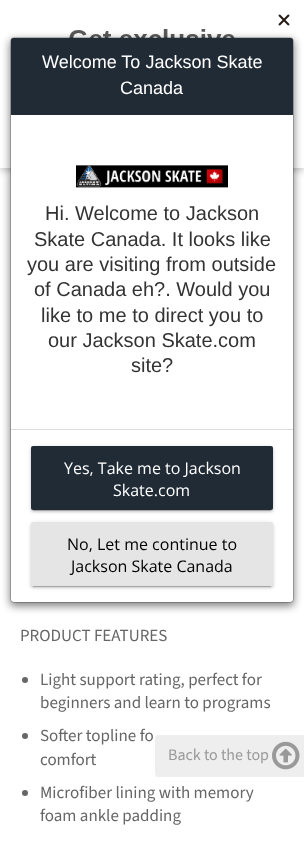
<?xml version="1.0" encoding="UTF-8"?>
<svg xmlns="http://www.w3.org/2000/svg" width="304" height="841">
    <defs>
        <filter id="blur1" x="-50%" y="-200%" width="200%" height="500%"><feGaussianBlur stdDeviation="3"/></filter>
        <filter id="blur2" x="-50%" y="-200%" width="200%" height="500%"><feGaussianBlur stdDeviation="4.5"/></filter>
        <filter id="blur3" x="-50%" y="-200%" width="200%" height="500%"><feGaussianBlur stdDeviation="2.5"/></filter>
        <filter id="blur4" x="-50%" y="-200%" width="200%" height="500%"><feGaussianBlur stdDeviation="0.5"/></filter>
        <filter id="blur5" x="-50%" y="-200%" width="200%" height="500%"><feGaussianBlur stdDeviation="1"/></filter>
    </defs>
    <rect width="100%" height="100%" fill="#FFFFFF"/>
    <rect x="0" y="3" width="304" height="168" fill="#000000" fill-opacity="0.2" filter="url(#blur1)"/>
    <rect x="0" y="0" width="304" height="168" fill="#FFFFFF"/>
    <image x="22" y="14" width="268" height="24" href="img_01.png"/>
    <rect x="10" y="40" width="284" height="566" rx="4" fill="#000000" fill-opacity="0.5" filter="url(#blur2)"/>
    <rect x="11" y="38" width="282" height="564" rx="3" fill="#FFFFFF"/>
    <rect x="10.5" y="37.5" width="283" height="565" rx="3.5" fill="none" stroke="#000000" stroke-opacity="0.2"/>
    <path d="M 13 38 H 291 C 292 38 293 39 293 40 V 115 H 11 V 40 C 11 39 12 38 13 38 Z" fill="#212B35"/>
    <text x="42" y="68" font-family="Liberation Sans" font-size="18" fill="#FFFFFF">Welcome To Jackson Skate</text>
    <text x="120" y="94" font-family="Liberation Sans" font-size="18" fill="#FFFFFF">Canada</text>
    <image x="76" y="165" width="152" height="23" href="img_02.png"/>
    <text x="45" y="220" font-family="Liberation Sans" font-size="20" fill="#333333">Hi. Welcome to Jackson</text>
    <text x="34" y="246" font-family="Liberation Sans" font-size="20" fill="#333333">Skate Canada. It looks like</text>
    <text x="27" y="271" font-family="Liberation Sans" font-size="20" fill="#333333">you are visiting from outside</text>
    <text x="34" y="296" font-family="Liberation Sans" font-size="20" fill="#333333">of Canada eh?. Would you</text>
    <text x="41" y="322" font-family="Liberation Sans" font-size="20" fill="#333333">like to me to direct you to</text>
    <text x="48" y="347" font-family="Liberation Sans" font-size="20" fill="#333333">our Jackson Skate.com</text>
    <text x="131" y="372" font-family="Liberation Sans" font-size="20" fill="#333333">site?</text>
    <rect x="11" y="429" width="282" height="1" fill="#DDDDDD"/>
    <rect x="31" y="447" width="242" height="64" rx="2" fill="#000000" fill-opacity="0.12" filter="url(#blur3)"/>
    <rect x="33" y="451" width="238" height="60" fill="#000000" fill-opacity="0.2" filter="url(#blur4)"/>
    <rect x="31" y="448" width="242" height="64" rx="2" fill="#000000" fill-opacity="0.14" filter="url(#blur5)"/>
    <rect x="31" y="446" width="242" height="64" rx="2" fill="#212B35"/>
    <text x="64" y="474" font-family="Open Sans" font-size="16" fill="#FFFFFF">Yes, Take me to Jackson</text>
    <text x="113" y="496" font-family="Open Sans" font-size="16" fill="#FFFFFF">Skate.com</text>
    <rect x="31" y="523" width="242" height="64" rx="2" fill="#000000" fill-opacity="0.12" filter="url(#blur3)"/>
    <rect x="33" y="527" width="238" height="60" fill="#000000" fill-opacity="0.2" filter="url(#blur4)"/>
    <rect x="31" y="524" width="242" height="64" rx="2" fill="#000000" fill-opacity="0.14" filter="url(#blur5)"/>
    <rect x="31" y="522" width="242" height="64" rx="2" fill="#E5E5E5"/>
    <text x="67" y="550" font-family="Open Sans" font-size="16" fill="#000000">No, Let me continue to</text>
    <text x="71" y="572" font-family="Open Sans" font-size="16" fill="#000000">Jackson Skate Canada</text>
    <text x="20" y="641" font-family="Source Sans Pro" font-size="17" fill="#666666">PRODUCT FEATURES</text>
    <circle cx="25" cy="680" r="3" fill="#666666"/>
    <text font-family="Source Sans Pro" font-size="17" fill="#666666">
        <tspan x="40" y="685">Light support rating, perfect for</tspan>
        <tspan x="40" y="708">beginners and learn to programs</tspan>
    </text>
    <circle cx="25" cy="736" r="3" fill="#666666"/>
    <text font-family="Source Sans Pro" font-size="17" fill="#666666">
        <tspan x="40" y="741">Softer topline fo</tspan>
        <tspan x="40" y="765">comfort</tspan>
    </text>
    <circle cx="25" cy="793" r="3" fill="#666666"/>
    <text font-family="Source Sans Pro" font-size="17" fill="#666666">
        <tspan x="40" y="798">Microfiber lining with memory</tspan>
        <tspan x="40" y="821">foam ankle padding</tspan>
    </text>
    <path d="M 158 735 H 304 V 777 H 158 C 156.5 777 155 775.5 155 774 V 738 C 155 736.5 156.5 735 158 735 Z" fill="#EEEEEE"/>
    <text x="168" y="760" font-family="Source Sans Pro" font-size="16" fill="#999999">Back to the top</text>
    <image x="272" y="741" width="28" height="29" href="img_03.png"/>
</svg>
